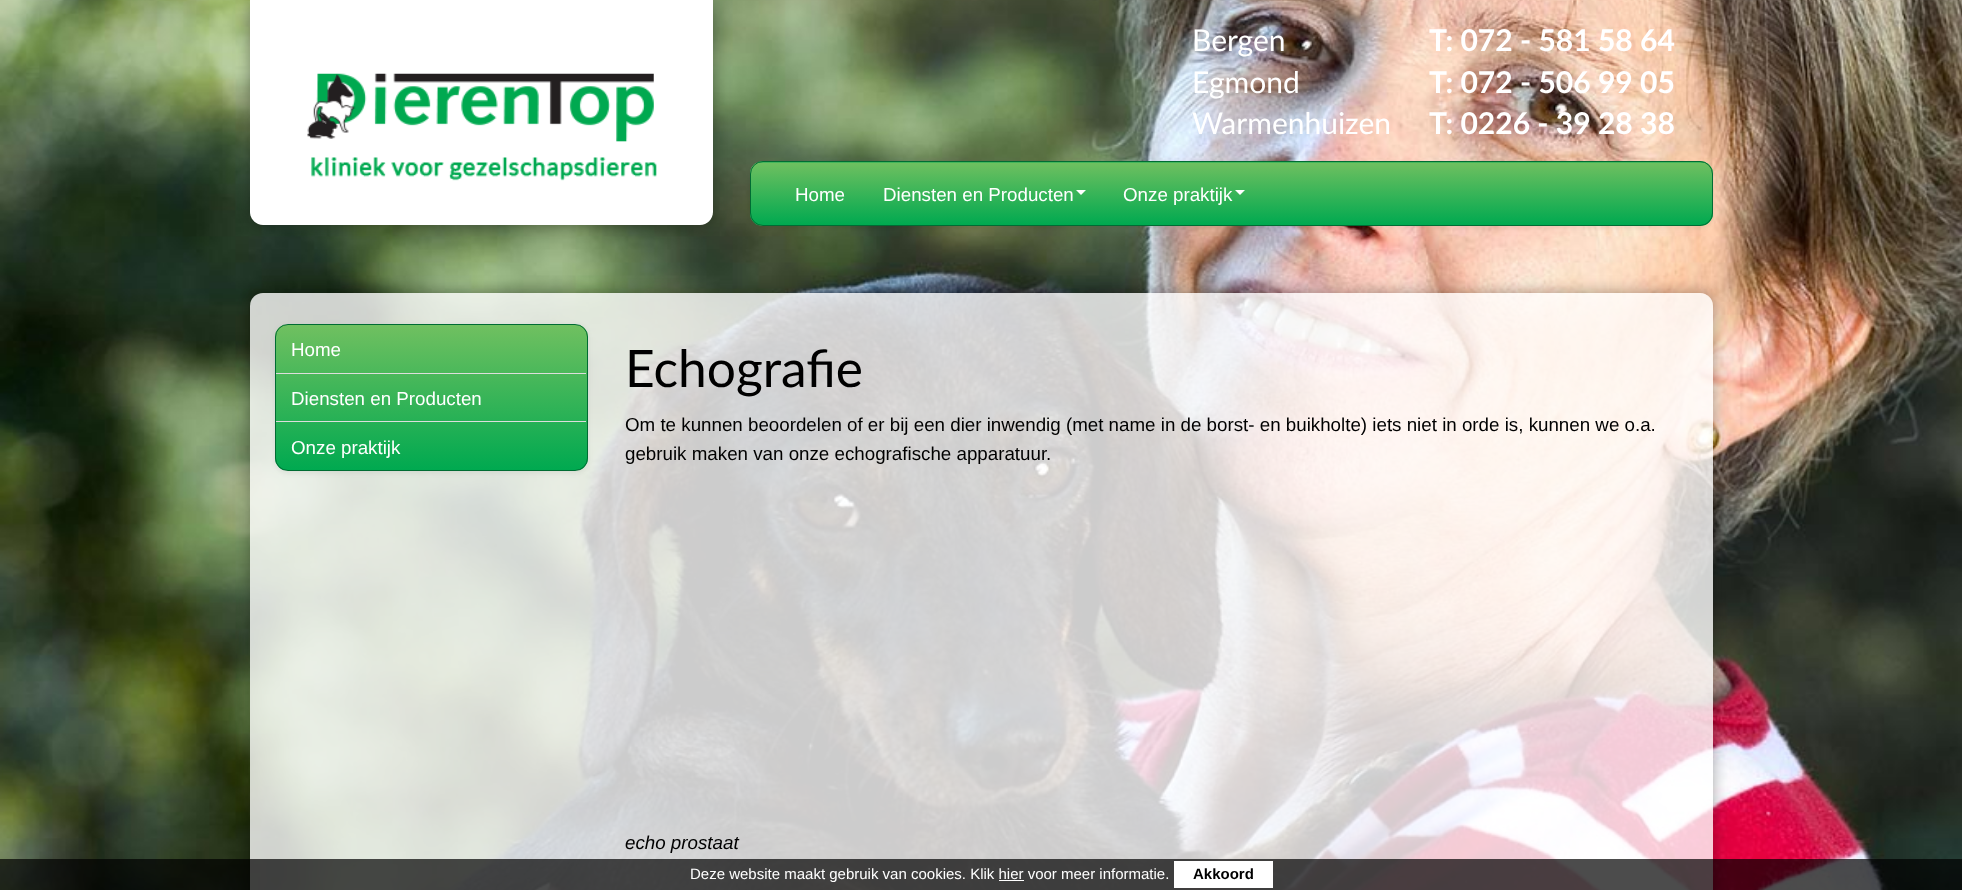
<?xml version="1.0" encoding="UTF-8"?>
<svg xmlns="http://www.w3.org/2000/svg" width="1962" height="890">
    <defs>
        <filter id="blur1" x="-50%" y="-200%" width="200%" height="500%"><feGaussianBlur stdDeviation="8"/></filter>
        <filter id="blur2" x="-50%" y="-200%" width="200%" height="500%"><feGaussianBlur stdDeviation="2.5"/></filter>
        <clipPath id="clip1"><rect x="750" y="161" width="963" height="65" rx="13"/></clipPath>
        <linearGradient id="g1" gradientUnits="userSpaceOnUse" x1="1231" y1="162" x2="1231" y2="225"><stop offset="0" stop-color="#70C060"/><stop offset="1" stop-color="#00A950"/></linearGradient>
        <clipPath id="clip2"><path d="M 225 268 H 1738 V 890 H 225 Z M 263 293 H 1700 C 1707 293 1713 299 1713 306 V 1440 C 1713 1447 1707 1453 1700 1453 H 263 C 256 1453 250 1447 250 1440 V 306 C 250 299 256 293 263 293 Z" clip-rule="evenodd"/></clipPath>
        <clipPath id="clip3"><rect x="275" y="324" width="313" height="147" rx="13"/></clipPath>
        <linearGradient id="g2" gradientUnits="userSpaceOnUse" x1="431" y1="325" x2="431" y2="470"><stop offset="0" stop-color="#70C060"/><stop offset="1" stop-color="#00A950"/></linearGradient>
    </defs>
    <rect width="100%" height="100%" fill="#FFFFFF"/>
    <image x="0" y="0" width="1962" height="890" href="img_01.png"/>
    <rect x="250" y="0" width="463" height="225" rx="13" fill="#000000" fill-opacity="0.35" filter="url(#blur1)"/>
    <path d="M 250 0 H 713 V 212 C 713 219 707 225 700 225 H 263 C 256 225 250 219 250 212 Z" fill="#FFFFFF"/>
    <image x="307" y="73" width="350" height="108" href="img_02.png"/>
    <text x="1192" y="51" font-family="Lato" font-size="30" fill="#FFFFFF">Bergen</text>
    <text x="1429" y="51" font-family="Lato" font-size="30" font-weight="700" fill="#FFFFFF">T: 072 - 581 58 64</text>
    <text x="1192" y="93" font-family="Lato" font-size="30" fill="#FFFFFF">Egmond</text>
    <text x="1429" y="93" font-family="Lato" font-size="30" font-weight="700" fill="#FFFFFF">T: 072 - 506 99 05</text>
    <text x="1192" y="134" font-family="Lato" font-size="30" fill="#FFFFFF">Warmenhuizen</text>
    <text x="1429" y="134" font-family="Lato" font-size="30" font-weight="700" fill="#FFFFFF">T: 0226 - 39 28 38</text>
    <rect x="750" y="163" width="963" height="65" rx="13" fill="#000000" fill-opacity="0.07" filter="url(#blur2)"/>
    <rect x="750" y="161" width="963" height="65" rx="13" fill="#43B75A"/>
    <g clip-path="url(#clip1)">
        <rect x="750" y="163" width="963" height="62" fill="url(#g1)"/>
    </g>
    <rect x="750.5" y="161.5" width="962" height="64" rx="12.5" fill="none" stroke="#006C33"/>
    <text x="795" y="201" font-family="Liberation Sans" font-size="18.75" fill="#FFFFFF">Home</text>
    <text x="883" y="201" font-family="Liberation Sans" font-size="18.75" fill="#FFFFFF">Diensten en Producten</text>
    <path d="M 1076 190 H 1086 L 1081 195 Z" fill="#FFFFFF"/>
    <text x="1123" y="201" font-family="Liberation Sans" font-size="18.75" fill="#FFFFFF">Onze praktijk</text>
    <path d="M 1235 190 H 1245 L 1240 195 Z" fill="#FFFFFF"/>
    <g clip-path="url(#clip2)">
        <rect x="250" y="293" width="1463" height="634" rx="13" fill="#000000" fill-opacity="0.35" filter="url(#blur1)"/>
    </g>
    <rect x="250" y="293" width="1463" height="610" rx="13" fill="#FFFFFF" fill-opacity="0.8"/>
    <rect x="275" y="325" width="313" height="148" rx="13" fill="#000000" fill-opacity="0.07" filter="url(#blur2)"/>
    <g clip-path="url(#clip3)">
        <rect x="275" y="325" width="313" height="145" fill="url(#g2)"/>
    </g>
    <rect x="275.5" y="324.5" width="312" height="146" rx="12.5" fill="none" stroke="#006C33"/>
    <text x="291" y="356" font-family="Liberation Sans" font-size="18.75" fill="#FFFFFF">Home</text>
    <rect x="276" y="373" width="310" height="1" fill="#DDDDDD"/>
    <text x="291" y="405" font-family="Liberation Sans" font-size="18.75" fill="#FFFFFF">Diensten en Producten</text>
    <rect x="276" y="421" width="310" height="1" fill="#DDDDDD"/>
    <text x="291" y="454" font-family="Liberation Sans" font-size="18.75" fill="#FFFFFF">Onze praktijk</text>
    <text x="625" y="387" font-family="Lato" font-size="51.5" fill="#000000">Echografie</text>
    <text font-family="Liberation Sans" font-size="18.75" fill="#000000">
        <tspan x="625" y="431">Om te kunnen beoordelen of er bij een dier inwendig (met name in de borst- en buikholte) iets niet in orde is, kunnen we o.a.</tspan>
        <tspan x="625" y="460">gebruik maken van onze echografische apparatuur.</tspan>
    </text>
    <text x="625" y="849" font-family="Liberation Sans" font-size="18.75" font-style="italic" fill="#000000">echo prostaat</text>
    <rect x="0" y="859" width="1962" height="31" fill="#000000" fill-opacity="0.7"/>
    <text x="690" y="879" font-family="Liberation Sans" font-size="15" fill="#FFFFFF">Deze website maakt gebruik van cookies. Klik hier voor meer informatie.</text>
    <rect x="1174" y="861" width="99" height="27" fill="#FFFFFF"/>
    <text x="1193" y="879" font-family="Liberation Sans" font-size="15" font-weight="700" fill="#000000">Akkoord</text>
    <rect x="999" y="880" width="25" height="1" fill="#FFFFFF"/>
</svg>
